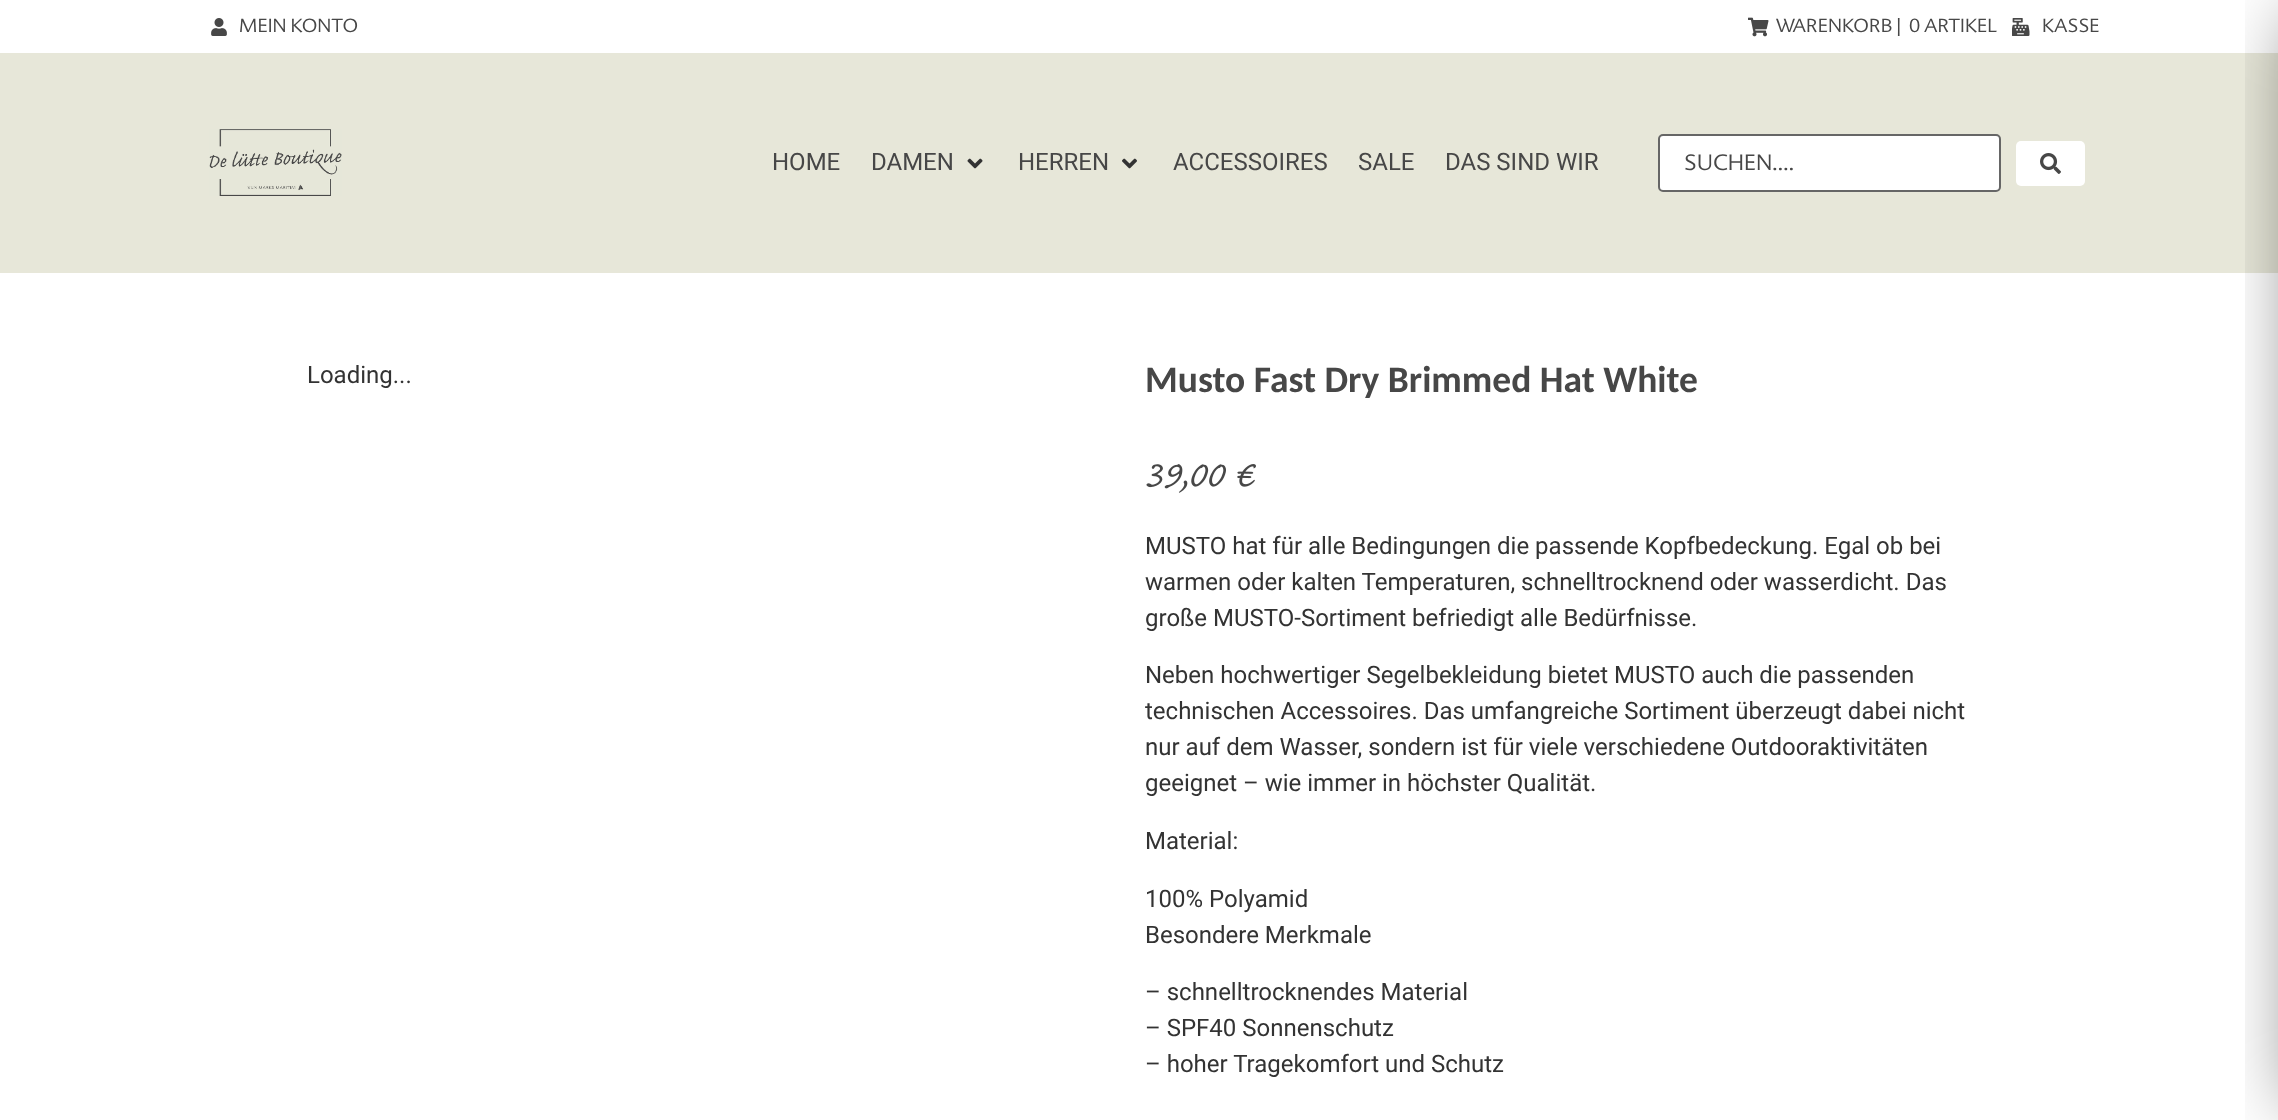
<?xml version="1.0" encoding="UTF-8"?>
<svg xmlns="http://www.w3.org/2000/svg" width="2278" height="1120">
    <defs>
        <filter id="blur1" x="-50%" y="-200%" width="200%" height="500%"><feGaussianBlur stdDeviation="38"/></filter>
    </defs>
    <rect width="100%" height="100%" fill="#FFFFFF"/>
    <image x="211" y="18" width="16" height="18" href="img_01.png"/>
    <text x="239" y="32" font-family="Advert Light" font-size="18" font-weight="300" fill="#474747">MEIN KONTO</text>
    <image x="1748" y="17" width="21" height="20" href="img_02.png"/>
    <text x="1776" y="32" font-family="Advert Light" font-size="18" font-weight="300" fill="#474747">WARENKORB |</text>
    <text x="1909" y="32" font-family="Advert Light" font-size="18" font-weight="300" fill="#474747">0 ARTIKEL</text>
    <rect x="0" y="53" width="2278" height="220" fill="#E7E7D9"/>
    <rect x="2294" y="15" width="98" height="1091" fill="#000000" fill-opacity="0.5" filter="url(#blur1)"/>
    <image x="2012" y="18" width="18" height="18" href="img_03.png"/>
    <text x="2042" y="32" font-family="Advert Light" font-size="18" font-weight="300" fill="#474747">KASSE</text>
    <image x="209" y="129" width="133" height="67" href="img_04.png"/>
    <text x="772" y="170" font-family="Roboto" font-size="24" fill="#474747">HOME</text>
    <text x="871" y="170" font-family="Roboto" font-size="24" fill="#474747">DAMEN</text>
    <image x="967" y="158" width="16" height="11" href="img_05.png"/>
    <text x="1018" y="170" font-family="Roboto" font-size="24" fill="#474747">HERREN</text>
    <image x="1122" y="158" width="15" height="11" href="img_06.png"/>
    <text x="1173" y="170" font-family="Roboto" font-size="24" fill="#474747">ACCESSOIRES</text>
    <text x="1358" y="170" font-family="Roboto" font-size="24" fill="#474747">SALE</text>
    <text x="1445" y="170" font-family="Roboto" font-size="24" fill="#474747">DAS SIND WIR</text>
    <rect x="1659" y="135" width="341" height="56" rx="4" fill="#FFFFFF" stroke="#666666" stroke-width="2"/>
    <text x="1684" y="170" font-family="Advert Light" font-size="21" font-weight="300" fill="#474747">SUCHEN....</text>
    <rect x="2016" y="141" width="69" height="45" rx="5" fill="#FFFFFF"/>
    <image x="2040" y="153" width="21" height="21" href="img_07.png"/>
    <text x="307" y="383" font-family="Roboto" font-size="24" fill="#333333">Loading...</text>
    <text x="1145" y="392" font-family="Carlito" font-size="37.5" font-weight="700" fill="#474747">Musto Fast Dry Brimmed Hat White</text>
    <image x="1146" y="464" width="80" height="29" href="img_08.png"/>
    <image x="1237" y="464" width="19" height="23" href="img_09.png"/>
    <text font-family="Roboto" font-size="24" fill="#333333">
        <tspan x="1145" y="554">MUSTO hat für alle Bedingungen die passende Kopfbedeckung. Egal ob bei</tspan>
        <tspan x="1145" y="590">warmen oder kalten Temperaturen, schnelltrocknend oder wasserdicht. Das</tspan>
        <tspan x="1145" y="626">große MUSTO-Sortiment befriedigt alle Bedürfnisse.</tspan>
    </text>
    <text font-family="Roboto" font-size="24" fill="#333333">
        <tspan x="1145" y="683">Neben hochwertiger Segelbekleidung bietet MUSTO auch die passenden</tspan>
        <tspan x="1145" y="719">technischen Accessoires. Das umfangreiche Sortiment überzeugt dabei nicht</tspan>
        <tspan x="1145" y="755">nur auf dem Wasser, sondern ist für viele verschiedene Outdooraktivitäten</tspan>
        <tspan x="1145" y="791">geeignet – wie immer in höchster Qualität.</tspan>
    </text>
    <text x="1145" y="849" font-family="Roboto" font-size="24" fill="#333333">Material:</text>
    <text font-family="Roboto" font-size="24" fill="#333333">
        <tspan x="1145" y="907">100% Polyamid</tspan>
        <tspan x="1145" y="943">Besondere Merkmale</tspan>
    </text>
    <text font-family="Roboto" font-size="24" fill="#333333">
        <tspan x="1145" y="1000">– schnelltrocknendes Material</tspan>
        <tspan x="1145" y="1036">– SPF40 Sonnenschutz</tspan>
        <tspan x="1145" y="1072">– hoher Tragekomfort und Schutz</tspan>
    </text>
</svg>
